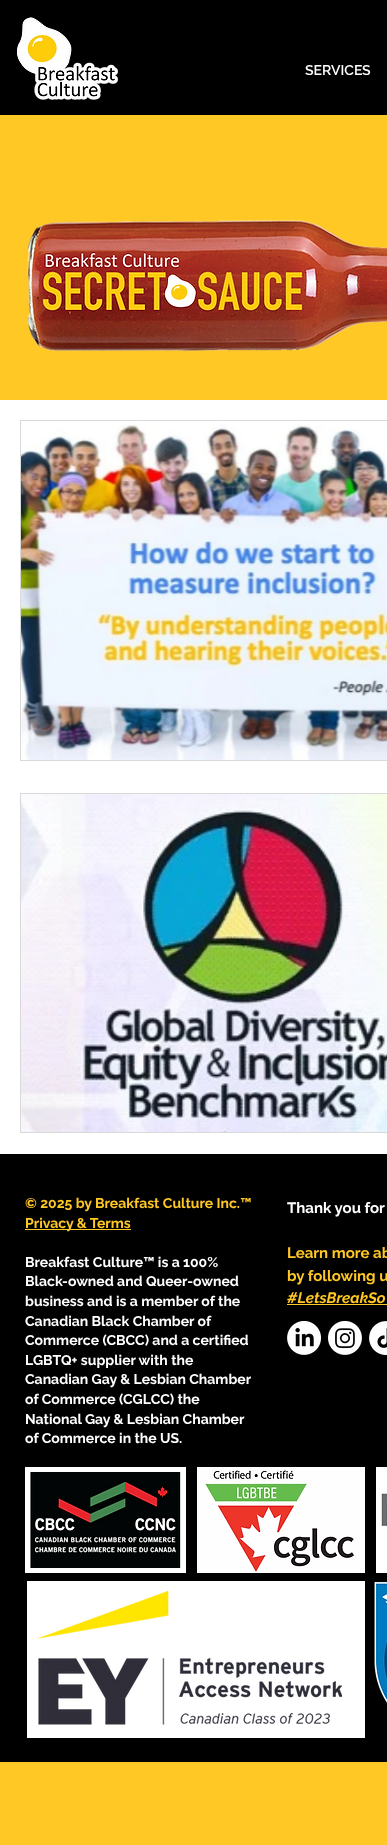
<?xml version="1.0" encoding="UTF-8"?>
<svg xmlns="http://www.w3.org/2000/svg" width="387" height="1845">
    <rect width="100%" height="100%" fill="#FFC824"/>
    <rect x="0" y="0" width="387" height="115" fill="#000000"/>
    <image x="17" y="17" width="102" height="83" href="img_01.png"/>
    <text x="305" y="75" font-family="Raleway" font-size="14" font-weight="600" fill="#FFFFFF">SERVICES</text>
    <image x="27" y="220" width="360" height="132" href="img_02.png"/>
    <rect x="0" y="400" width="387" height="754" fill="#FFFFFF"/>
    <rect x="20.5" y="420.5" width="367" height="340" fill="none" stroke="#D9D9D9"/>
    <image x="21" y="421" width="366" height="339" href="img_03.png"/>
    <rect x="20.5" y="793.5" width="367" height="339" fill="none" stroke="#D9D9D9"/>
    <image x="21" y="794" width="366" height="338" href="img_04.png"/>
    <rect x="0" y="1154" width="387" height="608" fill="#000000"/>
    <text x="25" y="1208" font-family="Raleway" font-size="14" font-weight="700" fill="#FFC824">© 2025 by Breakfast Culture Inc.™</text>
    <rect x="25" y="1229" width="106" height="1" fill="#FFC824"/>
    <text x="25" y="1228" font-family="Raleway" font-size="14" font-weight="700" fill="#FFC824">Privacy &amp; Terms</text>
    <text font-family="Raleway" font-size="14" font-weight="700" fill="#FFFFFF">
        <tspan x="25" y="1267">Breakfast Culture™ is a 100%</tspan>
        <tspan x="25" y="1286">Black-owned and Queer-owned</tspan>
        <tspan x="25" y="1306">business and is a member of the</tspan>
        <tspan x="25" y="1326">Canadian Black Chamber of</tspan>
        <tspan x="25" y="1345">Commerce (CBCC) and a certified</tspan>
        <tspan x="25" y="1365">LGBTQ+ supplier with the</tspan>
        <tspan x="25" y="1384">Canadian Gay &amp; Lesbian Chamber</tspan>
        <tspan x="25" y="1404">of Commerce (CGLCC) the</tspan>
        <tspan x="25" y="1424">National Gay &amp; Lesbian Chamber</tspan>
        <tspan x="25" y="1443">of Commerce in the US.</tspan>
    </text>
    <text x="287" y="1213" font-family="Raleway" font-size="15" font-weight="700" fill="#FFFFFF">Thank you for</text>
    <text font-family="Raleway" font-size="15" font-weight="700" fill="#FFC824">
        <tspan x="287" y="1258">Learn more ab</tspan>
        <tspan x="287" y="1281">by following u</tspan>
    </text>
    <text x="287" y="1303" font-family="Raleway" font-size="15" font-weight="700" font-style="italic" fill="#FFC824">#LetsBreakSo</text>
    <rect x="287" y="1304" width="100" height="1" fill="#FFC824"/>
    <image x="287" y="1321" width="34" height="34" href="img_05.png"/>
    <image x="328" y="1321" width="34" height="34" href="img_06.png"/>
    <image x="369" y="1321" width="18" height="34" href="img_07.png"/>
    <rect x="25" y="1467" width="161" height="106" fill="#FFFFFF"/>
    <image x="30" y="1472" width="151" height="96" href="img_08.png"/>
    <image x="197" y="1467" width="168" height="106" href="img_09.png"/>
    <image x="376" y="1467" width="11" height="106" href="img_10.png"/>
    <rect x="27" y="1581" width="338" height="157" fill="#FFFFFF"/>
    <image x="38" y="1591" width="304" height="134" href="img_11.png"/>
    <image x="374" y="1581" width="13" height="122" href="img_12.png"/>
</svg>
